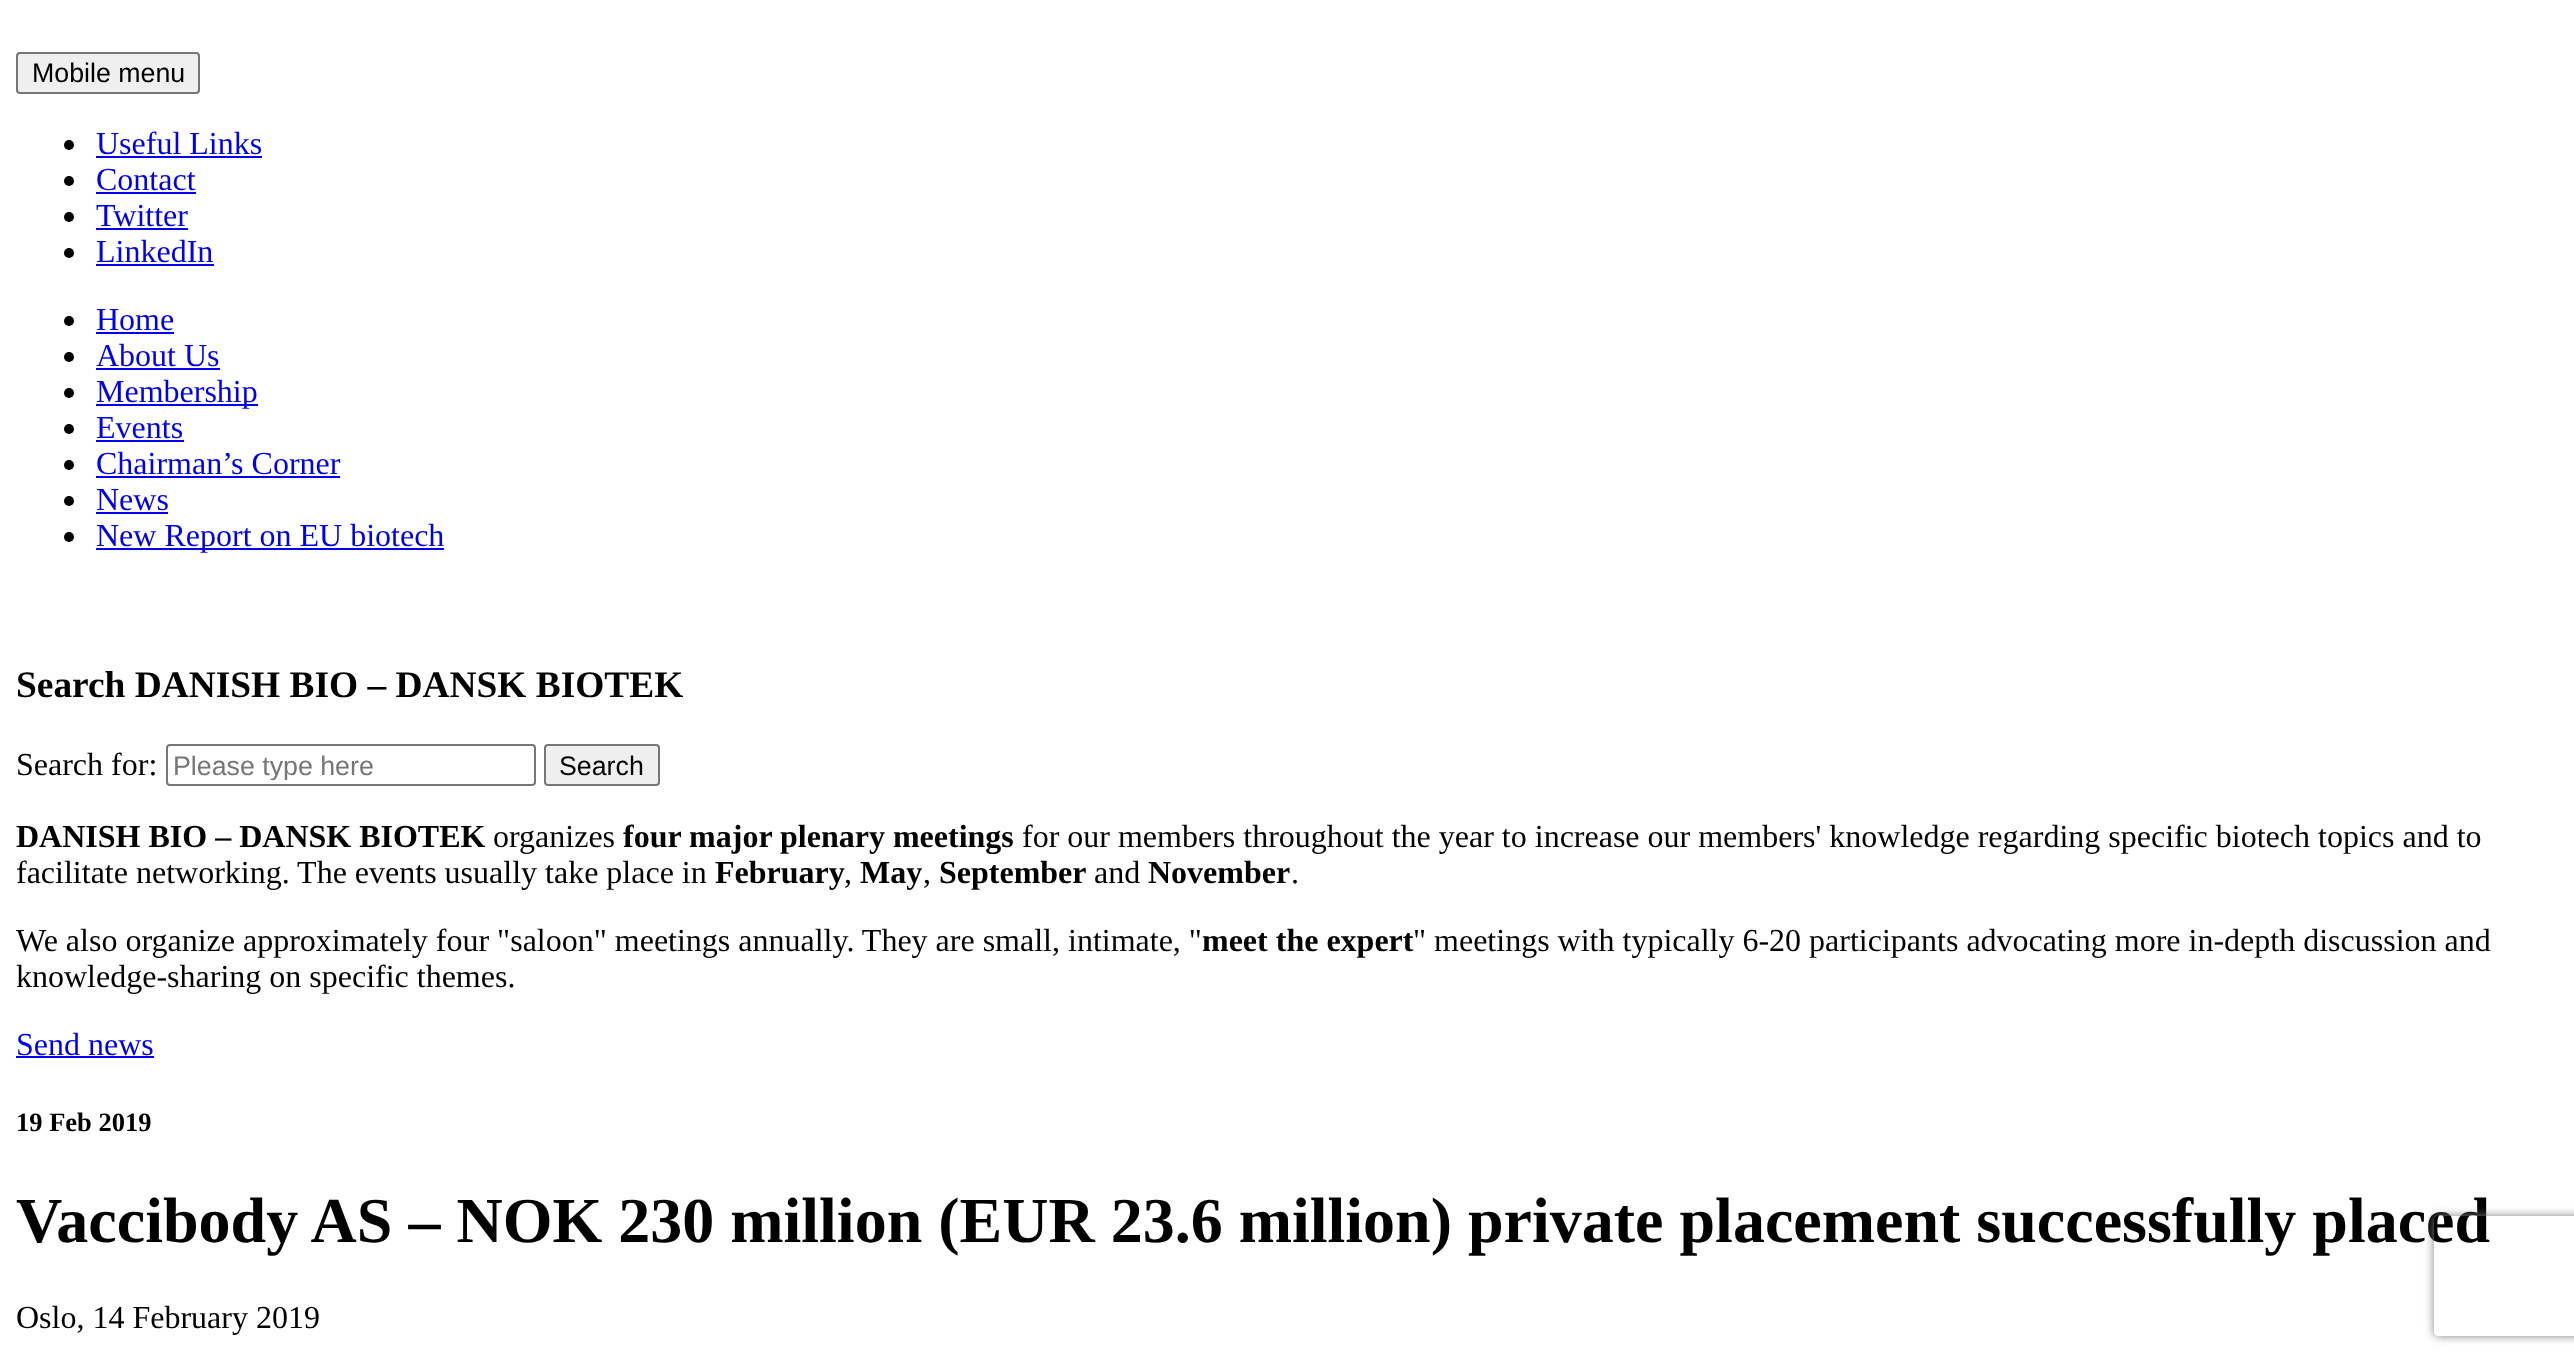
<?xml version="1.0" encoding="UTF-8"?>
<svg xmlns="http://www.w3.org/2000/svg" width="2574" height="1364">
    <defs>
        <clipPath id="clip1"><rect x="174" y="750" width="328" height="30"/></clipPath>
        <clipPath id="clip2"><path d="M 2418 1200 H 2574 V 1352 H 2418 Z M 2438 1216 H 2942 C 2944 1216 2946 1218 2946 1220 V 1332 C 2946 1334 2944 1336 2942 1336 H 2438 C 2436 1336 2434 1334 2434 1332 V 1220 C 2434 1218 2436 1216 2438 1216 Z" clip-rule="evenodd"/></clipPath>
        <filter id="blur1" x="-50%" y="-200%" width="200%" height="500%"><feGaussianBlur stdDeviation="5"/></filter>
    </defs>
    <rect width="100%" height="100%" fill="#FFFFFF"/>
    <rect x="17" y="53" width="182" height="40" rx="3" fill="#EFEFEF" stroke="#767676" stroke-width="2"/>
    <text x="32" y="82" font-family="Liberation Sans" font-size="26.75" fill="#000000">Mobile menu</text>
    <circle cx="69" cy="145" r="5" fill="#000000"/>
    <text x="96" y="154" font-family="Liberation Serif" font-size="32" fill="#0000EE">Useful Links</text>
    <rect x="96" y="156" width="166" height="2" fill="#0000EE"/>
    <circle cx="69" cy="181" r="5" fill="#000000"/>
    <text x="96" y="190" font-family="Liberation Serif" font-size="32" fill="#0000EE">Contact</text>
    <rect x="96" y="192" width="100" height="2" fill="#0000EE"/>
    <circle cx="69" cy="217" r="5" fill="#000000"/>
    <text x="96" y="226" font-family="Liberation Serif" font-size="32" fill="#0000EE">Twitter</text>
    <rect x="96" y="228" width="92" height="2" fill="#0000EE"/>
    <circle cx="69" cy="253" r="5" fill="#000000"/>
    <text x="96" y="262" font-family="Liberation Serif" font-size="32" fill="#0000EE">LinkedIn</text>
    <rect x="96" y="264" width="118" height="2" fill="#0000EE"/>
    <circle cx="69" cy="321" r="5" fill="#000000"/>
    <text x="96" y="330" font-family="Liberation Serif" font-size="32" fill="#0000EE">Home</text>
    <rect x="96" y="332" width="78" height="2" fill="#0000EE"/>
    <circle cx="69" cy="357" r="5" fill="#000000"/>
    <text x="96" y="366" font-family="Liberation Serif" font-size="32" fill="#0000EE">About Us</text>
    <rect x="96" y="368" width="124" height="2" fill="#0000EE"/>
    <circle cx="69" cy="393" r="5" fill="#000000"/>
    <rect x="96" y="404" width="162" height="2" fill="#0000EE"/>
    <text x="96" y="402" font-family="Liberation Serif" font-size="32" fill="#0000EE">Membership</text>
    <circle cx="69" cy="429" r="5" fill="#000000"/>
    <text x="96" y="438" font-family="Liberation Serif" font-size="32" fill="#0000EE">Events</text>
    <rect x="96" y="440" width="88" height="2" fill="#0000EE"/>
    <circle cx="69" cy="465" r="5" fill="#000000"/>
    <text x="96" y="474" font-family="Liberation Serif" font-size="32" fill="#0000EE">Chairman’s Corner</text>
    <rect x="96" y="476" width="244" height="2" fill="#0000EE"/>
    <circle cx="69" cy="501" r="5" fill="#000000"/>
    <text x="96" y="510" font-family="Liberation Serif" font-size="32" fill="#0000EE">News</text>
    <rect x="96" y="512" width="72" height="2" fill="#0000EE"/>
    <circle cx="69" cy="537" r="5" fill="#000000"/>
    <rect x="96" y="548" width="348" height="2" fill="#0000EE"/>
    <text x="96" y="546" font-family="Liberation Serif" font-size="32" fill="#0000EE">New Report on EU biotech</text>
    <text x="16" y="697" font-family="Liberation Serif" font-size="37.4" font-weight="700" fill="#000000">Search DANISH BIO – DANSK BIOTEK</text>
    <text x="16" y="775" font-family="Liberation Serif" font-size="32" fill="#000000">Search for:</text>
    <rect x="167" y="745" width="368" height="40" rx="3" fill="none" stroke="#767676" stroke-width="2"/>
    <g clip-path="url(#clip1)">
        <text x="173" y="775" font-family="Liberation Sans" font-size="26.75" fill="#757575">Please type here</text>
    </g>
    <rect x="545" y="745" width="114" height="40" rx="3" fill="#EFEFEF" stroke="#767676" stroke-width="2"/>
    <text x="559" y="775" font-family="Liberation Sans" font-size="26.75" fill="#000000">Search</text>
    <text x="16" y="847" font-family="Liberation Serif" font-size="32" font-weight="700" fill="#000000">DANISH BIO – DANSK BIOTEK</text>
    <text x="493" y="847" font-family="Liberation Serif" font-size="32" fill="#000000">organizes</text>
    <text x="623" y="847" font-family="Liberation Serif" font-size="32" font-weight="700" fill="#000000">four major plenary meetings</text>
    <text x="1022" y="847" font-family="Liberation Serif" font-size="32" fill="#000000">for our members throughout the year to increase our members' knowledge regarding specific biotech topics and to</text>
    <text x="16" y="883" font-family="Liberation Serif" font-size="32" fill="#000000">facilitate networking. The events usually take place in</text>
    <text x="715" y="883" font-family="Liberation Serif" font-size="32" font-weight="700" fill="#000000">February</text>
    <text x="844" y="883" font-family="Liberation Serif" font-size="32" fill="#000000">,</text>
    <text x="860" y="883" font-family="Liberation Serif" font-size="32" font-weight="700" fill="#000000">May</text>
    <text x="923" y="883" font-family="Liberation Serif" font-size="32" fill="#000000">,</text>
    <text x="939" y="883" font-family="Liberation Serif" font-size="32" font-weight="700" fill="#000000">September</text>
    <text x="1094" y="883" font-family="Liberation Serif" font-size="32" fill="#000000">and</text>
    <text x="1148" y="883" font-family="Liberation Serif" font-size="32" font-weight="700" fill="#000000">November</text>
    <text x="1291" y="883" font-family="Liberation Serif" font-size="32" fill="#000000">.</text>
    <text x="16" y="951" font-family="Liberation Serif" font-size="32" fill="#000000">We also organize approximately four "saloon" meetings annually. They are small, intimate, "</text>
    <text x="1202" y="951" font-family="Liberation Serif" font-size="32" font-weight="700" fill="#000000">meet the expert</text>
    <text x="1413" y="951" font-family="Liberation Serif" font-size="32" fill="#000000">" meetings with typically 6-20 participants advocating more in-depth discussion and</text>
    <text x="16" y="987" font-family="Liberation Serif" font-size="32" fill="#000000">knowledge-sharing on specific themes.</text>
    <text x="16" y="1055" font-family="Liberation Serif" font-size="32" fill="#0000EE">Send news</text>
    <rect x="16" y="1056" width="138" height="2" fill="#0000EE"/>
    <text x="16" y="1131" font-family="Liberation Serif" font-size="26.5" font-weight="700" fill="#000000">19 Feb 2019</text>
    <text x="16" y="1242" font-family="Liberation Serif" font-size="64" font-weight="700" fill="#000000">Vaccibody AS – NOK 230 million (EUR 23.6 million) private placement successfully placed</text>
    <text x="16" y="1328" font-family="Liberation Serif" font-size="32" fill="#000000">Oslo, 14 February 2019</text>
    <g clip-path="url(#clip2)">
        <rect x="2434" y="1216" width="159" height="120" rx="4" fill="#808080" filter="url(#blur1)"/>
    </g>
</svg>
